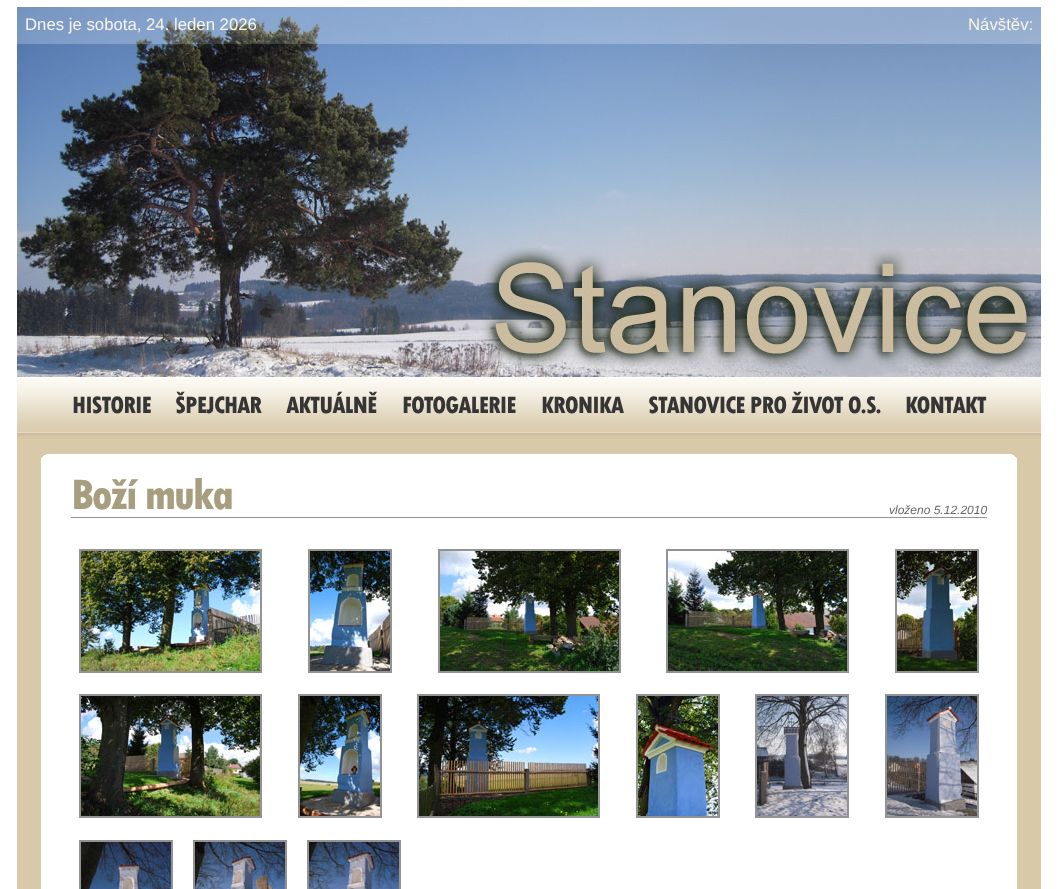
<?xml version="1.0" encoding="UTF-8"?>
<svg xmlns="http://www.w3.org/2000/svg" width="1058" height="889">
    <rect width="100%" height="100%" fill="#FFFFFF"/>
    <rect x="17" y="439" width="1024" height="450" fill="#D8C9A8"/>
    <image x="17" y="7" width="1024" height="370" href="img_01.png"/>
    <text x="25" y="30" font-family="Liberation Sans" font-size="16.75" fill="#F8F4EB">Dnes je sobota, 24. leden 2026</text>
    <text x="968" y="30" font-family="Liberation Sans" font-size="16.75" fill="#F8F4EB">Návštěv:</text>
    <image x="17" y="378" width="1024" height="61" href="img_02.png"/>
    <text x="72" y="413" font-family="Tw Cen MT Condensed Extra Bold" font-size="25" font-weight="800" letter-spacing="-1" fill="#353535">HISTORIE</text>
    <text x="175" y="413" font-family="Tw Cen MT Condensed Extra Bold" font-size="25" font-weight="800" letter-spacing="-1" fill="#353535">ŠPEJCHAR</text>
    <text x="286" y="413" font-family="Tw Cen MT Condensed Extra Bold" font-size="25" font-weight="800" letter-spacing="-1" fill="#353535">AKTUÁLNĚ</text>
    <text x="402" y="413" font-family="Tw Cen MT Condensed Extra Bold" font-size="25" font-weight="800" letter-spacing="-1" fill="#353535">FOTOGALERIE</text>
    <text x="541" y="413" font-family="Tw Cen MT Condensed Extra Bold" font-size="25" font-weight="800" letter-spacing="-1" fill="#353535">KRONIKA</text>
    <text x="648" y="413" font-family="Tw Cen MT Condensed Extra Bold" font-size="25" font-weight="800" letter-spacing="-1" fill="#353535">STANOVICE PRO ŽIVOT O.S.</text>
    <text x="905" y="413" font-family="Tw Cen MT Condensed Extra Bold" font-size="25" font-weight="800" letter-spacing="-1" fill="#353535">KONTAKT</text>
    <image x="41" y="454" width="976" height="8" href="img_03.png"/>
    <rect x="41" y="462" width="976" height="427" fill="#FFFFFF"/>
    <rect x="71" y="517" width="916" height="1" fill="#939393"/>
    <text x="71" y="509" font-family="Tw Cen MT Condensed Extra Bold" font-size="45" font-weight="800" letter-spacing="-2" fill="#A79E7F">Boží muka</text>
    <text x="889" y="514" font-family="Liberation Sans" font-size="12" font-style="italic" fill="#66656B">vloženo 5.12.2010</text>
    <rect x="80" y="550" width="181" height="122" fill="none" stroke="#939393" stroke-width="2"/>
    <rect x="309" y="550" width="82" height="122" fill="none" stroke="#939393" stroke-width="2"/>
    <rect x="439" y="550" width="181" height="122" fill="none" stroke="#939393" stroke-width="2"/>
    <rect x="667" y="550" width="181" height="122" fill="none" stroke="#939393" stroke-width="2"/>
    <rect x="896" y="550" width="82" height="122" fill="none" stroke="#939393" stroke-width="2"/>
    <image x="81" y="551" width="179" height="120" href="img_04.png"/>
    <image x="310" y="551" width="80" height="120" href="img_05.png"/>
    <image x="440" y="551" width="179" height="120" href="img_06.png"/>
    <image x="668" y="551" width="179" height="120" href="img_07.png"/>
    <image x="897" y="551" width="80" height="120" href="img_08.png"/>
    <rect x="80" y="695" width="181" height="122" fill="none" stroke="#939393" stroke-width="2"/>
    <rect x="299" y="695" width="82" height="122" fill="none" stroke="#939393" stroke-width="2"/>
    <rect x="418" y="695" width="181" height="122" fill="none" stroke="#939393" stroke-width="2"/>
    <rect x="637" y="695" width="82" height="122" fill="none" stroke="#939393" stroke-width="2"/>
    <rect x="756" y="695" width="92" height="122" fill="none" stroke="#939393" stroke-width="2"/>
    <rect x="886" y="695" width="92" height="122" fill="none" stroke="#939393" stroke-width="2"/>
    <image x="81" y="696" width="179" height="120" href="img_09.png"/>
    <image x="300" y="696" width="80" height="120" href="img_10.png"/>
    <image x="419" y="696" width="179" height="120" href="img_11.png"/>
    <image x="638" y="696" width="80" height="120" href="img_12.png"/>
    <image x="757" y="696" width="90" height="120" href="img_13.png"/>
    <image x="887" y="696" width="90" height="120" href="img_14.png"/>
    <rect x="80" y="841" width="92" height="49" fill="none" stroke="#939393" stroke-width="2"/>
    <rect x="194" y="841" width="92" height="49" fill="none" stroke="#939393" stroke-width="2"/>
    <rect x="308" y="841" width="92" height="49" fill="none" stroke="#939393" stroke-width="2"/>
    <image x="81" y="842" width="90" height="47" href="img_15.png"/>
    <image x="195" y="842" width="90" height="47" href="img_16.png"/>
    <image x="309" y="842" width="90" height="47" href="img_17.png"/>
</svg>
